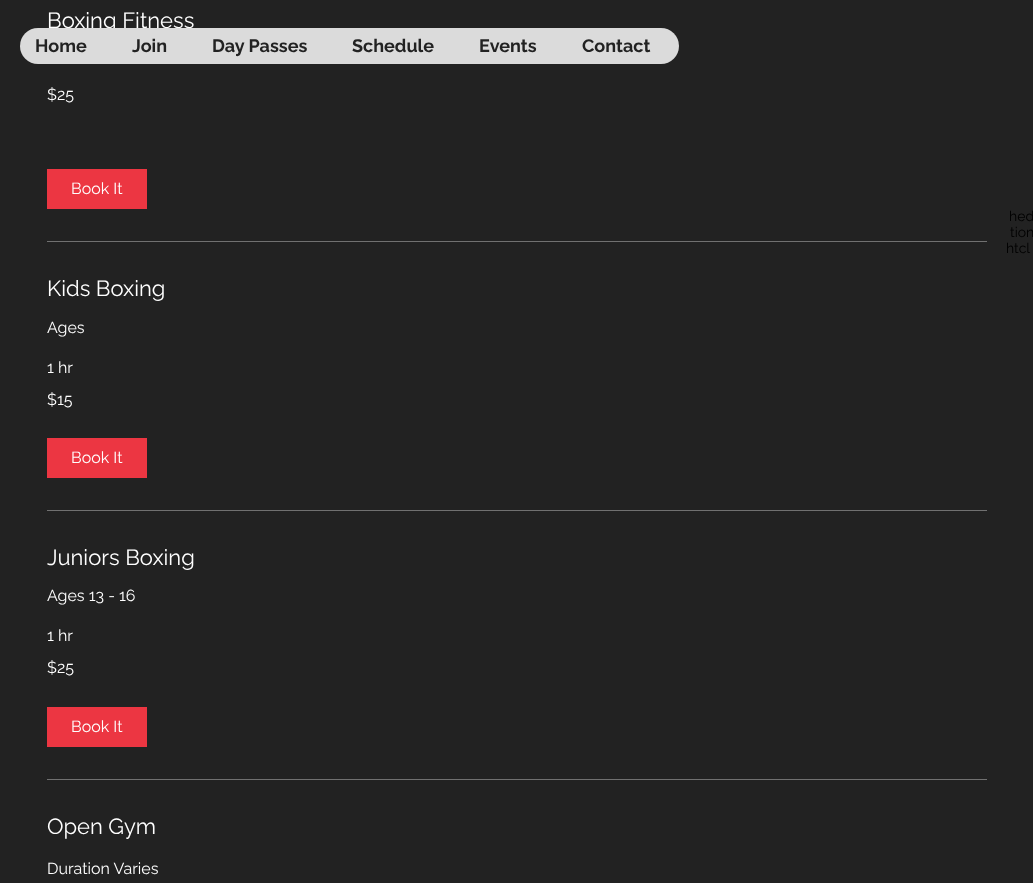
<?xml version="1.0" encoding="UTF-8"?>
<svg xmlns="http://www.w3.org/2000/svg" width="1033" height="883">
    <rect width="100%" height="100%" fill="#222222"/>
    <text x="1006" y="253" font-family="Raleway" font-size="14" fill="#000000">htcl</text>
    <rect x="1006" y="243" width="1" height="10" fill="#222222"/>
    <text x="47" y="28" font-family="Raleway" font-size="22" fill="#FFFFFF">Boxing Fitness</text>
    <text x="47" y="100" font-family="Raleway" font-size="16" fill="#FFFFFF">$25</text>
    <rect x="47" y="169" width="100" height="40" fill="#EC3642"/>
    <text x="71" y="194" font-family="Raleway" font-size="16" fill="#FFFFFF">Book It</text>
    <rect x="47" y="241" width="940" height="1" fill="#717171"/>
    <text x="47" y="296" font-family="Raleway" font-size="22" fill="#FFFFFF">Kids Boxing</text>
    <text x="47" y="333" font-family="Raleway" font-size="16" fill="#FFFFFF">Ages</text>
    <text x="47" y="373" font-family="Raleway" font-size="16" fill="#FFFFFF">1 hr</text>
    <text x="47" y="405" font-family="Raleway" font-size="16" fill="#FFFFFF">$15</text>
    <rect x="47" y="438" width="100" height="40" fill="#EC3642"/>
    <text x="71" y="463" font-family="Raleway" font-size="16" fill="#FFFFFF">Book It</text>
    <rect x="47" y="510" width="940" height="1" fill="#717171"/>
    <text x="47" y="565" font-family="Raleway" font-size="22" fill="#FFFFFF">Juniors Boxing</text>
    <text x="47" y="601" font-family="Raleway" font-size="16" fill="#FFFFFF">Ages 13 - 16</text>
    <text x="47" y="641" font-family="Raleway" font-size="16" fill="#FFFFFF">1 hr</text>
    <text x="47" y="673" font-family="Raleway" font-size="16" fill="#FFFFFF">$25</text>
    <rect x="47" y="707" width="100" height="40" fill="#EC3642"/>
    <text x="71" y="732" font-family="Raleway" font-size="16" fill="#FFFFFF">Book It</text>
    <rect x="47" y="779" width="940" height="1" fill="#717171"/>
    <text x="47" y="834" font-family="Raleway" font-size="22" fill="#FFFFFF">Open Gym</text>
    <text x="47" y="874" font-family="Raleway" font-size="16" fill="#FFFFFF">Duration Varies</text>
    <rect x="20" y="28" width="659" height="36" rx="18" fill="#DBDBDB"/>
    <text x="35" y="52" font-family="Raleway" font-size="18" font-weight="700" fill="#222222">Home</text>
    <text x="132" y="52" font-family="Raleway" font-size="18" font-weight="700" fill="#222222">Join</text>
    <text x="212" y="52" font-family="Raleway" font-size="18" font-weight="700" fill="#222222">Day Passes</text>
    <text x="352" y="52" font-family="Raleway" font-size="18" font-weight="700" fill="#222222">Schedule</text>
    <text x="479" y="52" font-family="Raleway" font-size="18" font-weight="700" fill="#222222">Events</text>
    <text x="582" y="52" font-family="Raleway" font-size="18" font-weight="700" fill="#222222">Contact</text>
    <text x="1009" y="221" font-family="Raleway" font-size="14" fill="#000000">hed</text>
    <text x="1010" y="237" font-family="Raleway" font-size="14" fill="#000000">tion</text>
</svg>
